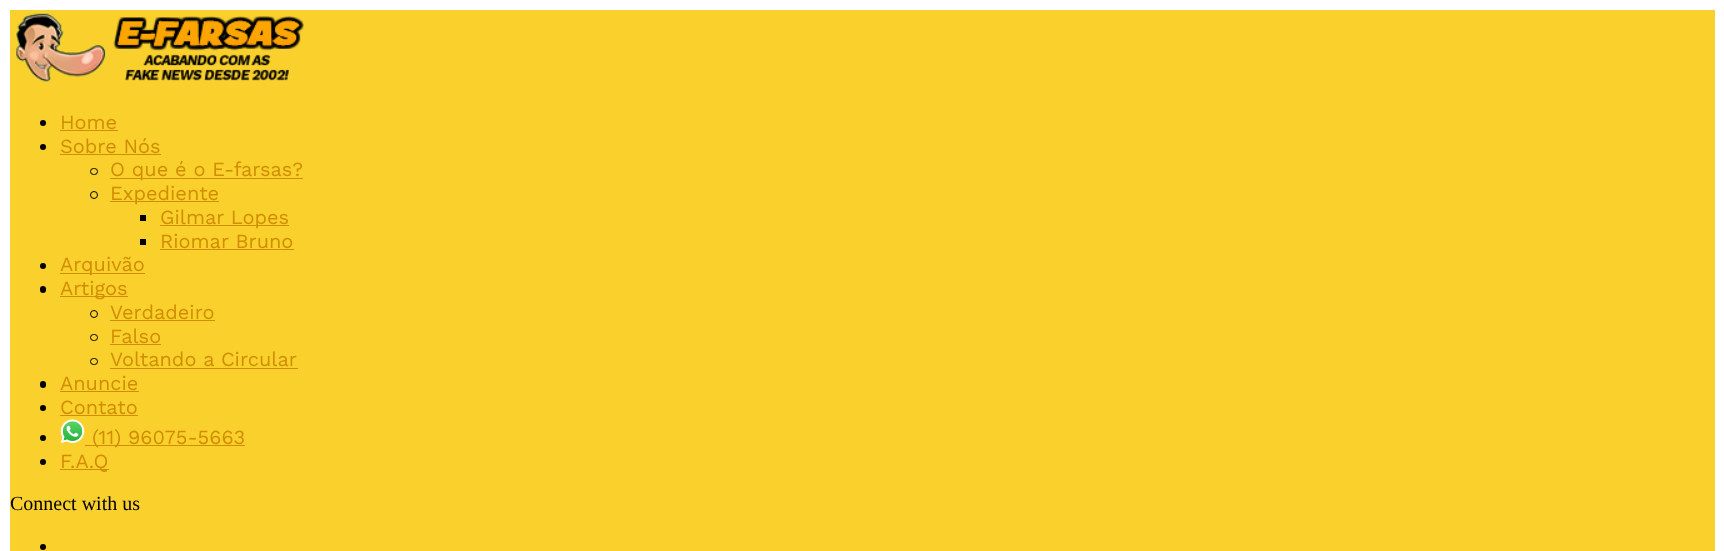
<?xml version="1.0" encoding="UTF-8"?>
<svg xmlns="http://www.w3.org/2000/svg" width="1724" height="551">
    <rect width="100%" height="100%" fill="#FFFFFF"/>
    <rect x="10" y="10" width="1705" height="541" fill="#FAD02C"/>
    <image x="15" y="12" width="289" height="71" href="img_01.png"/>
    <circle cx="43" cy="123" r="3" fill="#000000"/>
    <text x="60" y="129" font-family="Work Sans" font-size="20" fill="#D18D04">Home</text>
    <rect x="60" y="130" width="58" height="1" fill="#D18D04"/>
    <circle cx="43" cy="147" r="3" fill="#000000"/>
    <text x="60" y="153" font-family="Work Sans" font-size="20" fill="#D18D04">Sobre Nós</text>
    <rect x="60" y="154" width="101" height="1" fill="#D18D04"/>
    <rect x="90.5" y="168.5" width="7" height="6" rx="3" fill="none" stroke="#000000"/>
    <rect x="110" y="178" width="193" height="1" fill="#D18D04"/>
    <text x="110" y="176" font-family="Work Sans" font-size="20" fill="#D18D04">O que é o E-farsas?</text>
    <circle cx="94" cy="195" r="3.5" fill="none" stroke="#000000"/>
    <rect x="110" y="201" width="109" height="1" fill="#D18D04"/>
    <text x="110" y="200" font-family="Work Sans" font-size="20" fill="#D18D04">Expediente</text>
    <rect x="140" y="215" width="6" height="6" fill="#000000"/>
    <rect x="160" y="225" width="129" height="1" fill="#D18D04"/>
    <text x="160" y="224" font-family="Work Sans" font-size="20" fill="#D18D04">Gilmar Lopes</text>
    <rect x="140" y="239" width="6" height="6" fill="#000000"/>
    <text x="160" y="248" font-family="Work Sans" font-size="20" fill="#D18D04">Riomar Bruno</text>
    <rect x="160" y="249" width="134" height="1" fill="#D18D04"/>
    <circle cx="43" cy="266" r="3" fill="#000000"/>
    <rect x="60" y="273" width="85" height="1" fill="#D18D04"/>
    <text x="60" y="271" font-family="Work Sans" font-size="20" fill="#D18D04">Arquivão</text>
    <rect x="40" y="286" width="6" height="7" rx="3" fill="#000000"/>
    <rect x="60" y="296" width="68" height="1" fill="#D18D04"/>
    <text x="60" y="295" font-family="Work Sans" font-size="20" fill="#D18D04">Artigos</text>
    <circle cx="94" cy="314" r="3.5" fill="none" stroke="#000000"/>
    <text x="110" y="319" font-family="Work Sans" font-size="20" fill="#D18D04">Verdadeiro</text>
    <rect x="110" y="320" width="105" height="1" fill="#D18D04"/>
    <rect x="90.5" y="334.5" width="7" height="6" rx="3" fill="none" stroke="#000000"/>
    <text x="110" y="343" font-family="Work Sans" font-size="20" fill="#D18D04">Falso</text>
    <rect x="110" y="344" width="51" height="1" fill="#D18D04"/>
    <rect x="90.5" y="358.5" width="7" height="6" rx="3" fill="none" stroke="#000000"/>
    <text x="110" y="366" font-family="Work Sans" font-size="20" fill="#D18D04">Voltando a Circular</text>
    <rect x="110" y="368" width="188" height="1" fill="#D18D04"/>
    <rect x="40" y="381" width="6" height="7" rx="3" fill="#000000"/>
    <text x="60" y="390" font-family="Work Sans" font-size="20" fill="#D18D04">Anuncie</text>
    <rect x="60" y="391" width="79" height="1" fill="#D18D04"/>
    <circle cx="43" cy="408" r="3" fill="#000000"/>
    <text x="60" y="414" font-family="Work Sans" font-size="20" fill="#D18D04">Contato</text>
    <rect x="60" y="415" width="78" height="1" fill="#D18D04"/>
    <circle cx="43" cy="438" r="3" fill="#000000"/>
    <image x="60" y="419" width="25" height="24" href="img_02.png"/>
    <rect x="85" y="445" width="160" height="1" fill="#D18D04"/>
    <text x="92" y="444" font-family="Work Sans" font-size="20" fill="#D18D04">(11) 96075-5663</text>
    <circle cx="43" cy="462" r="3" fill="#000000"/>
    <rect x="60" y="469" width="49" height="1" fill="#D18D04"/>
    <text x="60" y="468" font-family="Work Sans" font-size="20" fill="#D18D04">F.A.Q</text>
    <text x="10" y="510" font-family="Liberation Serif" font-size="20" fill="#000000">Connect with us</text>
    <circle cx="43" cy="547" r="3" fill="#000000"/>
</svg>
